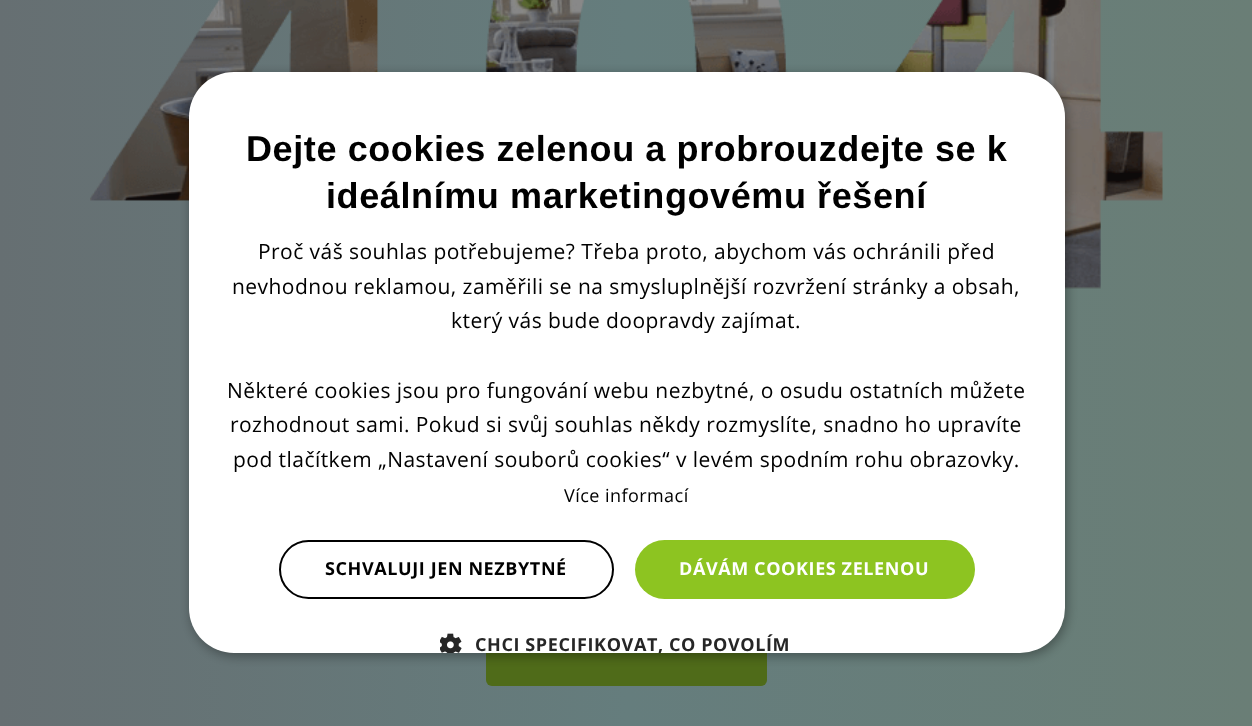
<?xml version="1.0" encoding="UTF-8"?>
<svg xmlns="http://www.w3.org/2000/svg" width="1252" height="726">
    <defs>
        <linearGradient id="g1" gradientUnits="userSpaceOnUse" x1="0" y1="301" x2="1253" y2="301"><stop offset="0" stop-color="#666F72"/><stop offset="0.5" stop-color="#657D7D"/><stop offset="1" stop-color="#6A7E76"/></linearGradient>
        <filter id="blur1" x="-50%" y="-200%" width="200%" height="500%"><feGaussianBlur stdDeviation="6"/></filter>
        <clipPath id="clip1"><rect x="189" y="72" width="876" height="581" rx="45"/></clipPath>
    </defs>
    <rect width="100%" height="100%" fill="#FFFFFF"/>
    <rect x="0" y="0" width="1252" height="726" fill="url(#g1)"/>
    <image x="90" y="0" width="1073" height="289" href="img_01.png"/>
    <rect x="486" y="597" width="281" height="89" rx="6" fill="#4F6B19"/>
    <rect x="191" y="75" width="876" height="581" rx="45" fill="#000000" fill-opacity="0.35" filter="url(#blur1)"/>
    <rect x="189" y="72" width="876" height="581" rx="45" fill="#FFFFFF"/>
    <text x="246" y="161" font-family="Liberation Sans" font-size="36" font-weight="700" letter-spacing="0.6" fill="#000000">Dejte cookies zelenou a probrouzdejte se k</text>
    <text x="326" y="208" font-family="Liberation Sans" font-size="36" font-weight="700" letter-spacing="0.6" fill="#000000">ideálnímu marketingovému řešení</text>
    <text x="258" y="259" font-family="Open Sans" font-size="21" letter-spacing="0.45" fill="#000000">Proč váš souhlas potřebujeme? Třeba proto, abychom vás ochránili před</text>
    <text x="232" y="294" font-family="Open Sans" font-size="21" letter-spacing="0.45" fill="#000000">nevhodnou reklamou, zaměřili se na smysluplnější rozvržení stránky a obsah,</text>
    <text x="451" y="328" font-family="Open Sans" font-size="21" letter-spacing="0.45" fill="#000000">který vás bude doopravdy zajímat.</text>
    <text x="227" y="398" font-family="Open Sans" font-size="21" letter-spacing="0.45" fill="#000000">Některé cookies jsou pro fungování webu nezbytné, o osudu ostatních můžete</text>
    <text x="230" y="432" font-family="Open Sans" font-size="21" letter-spacing="0.45" fill="#000000">rozhodnout sami. Pokud si svůj souhlas někdy rozmyslíte, snadno ho upravíte</text>
    <text x="233" y="467" font-family="Open Sans" font-size="21" letter-spacing="0.45" fill="#000000">pod tlačítkem „Nastavení souborů cookies“ v levém spodním rohu obrazovky.</text>
    <text x="564" y="502" font-family="Open Sans" font-size="18" letter-spacing="0.45" fill="#000000">Více informací</text>
    <rect x="280" y="541" width="333" height="57" rx="28.5" fill="none" stroke="#000000" stroke-width="2"/>
    <text x="325" y="575" font-family="Open Sans" font-size="18" font-weight="700" letter-spacing="0.6" fill="#000000">SCHVALUJI JEN NEZBYTNÉ</text>
    <rect x="635" y="540" width="340" height="59" rx="29.5" fill="#8DC421"/>
    <text x="679" y="575" font-family="Open Sans" font-size="18" font-weight="700" letter-spacing="0.6" fill="#FFFFFF">DÁVÁM COOKIES ZELENOU</text>
    <image x="440" y="633" width="22" height="20" href="img_02.png"/>
    <g clip-path="url(#clip1)">
        <text x="475" y="651" font-family="Open Sans" font-size="18" font-weight="700" letter-spacing="0.6" fill="#262626">CHCI SPECIFIKOVAT, CO POVOLÍM</text>
    </g>
</svg>
